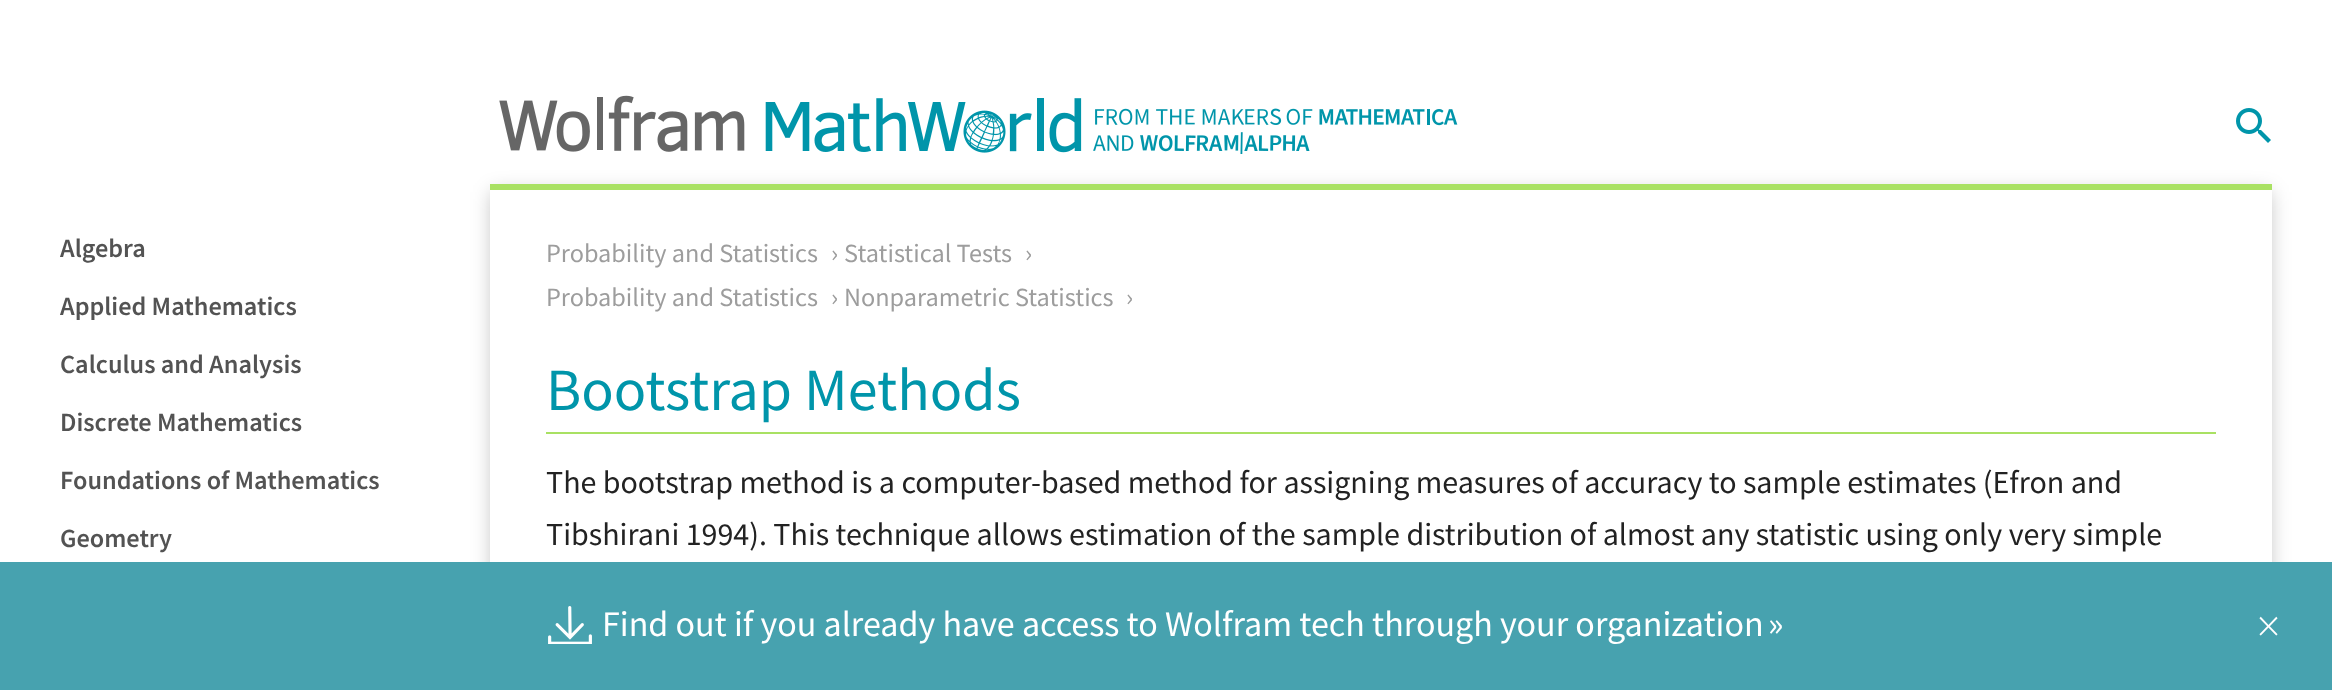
<?xml version="1.0" encoding="UTF-8"?>
<svg xmlns="http://www.w3.org/2000/svg" width="2332" height="690">
    <defs>
        <clipPath id="clip1"><path d="M 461 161 H 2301 V 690 H 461 Z M 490 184 H 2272 V 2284 H 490 Z" clip-rule="evenodd"/></clipPath>
        <filter id="blur1" x="-50%" y="-200%" width="200%" height="500%"><feGaussianBlur stdDeviation="10"/></filter>
    </defs>
    <rect width="100%" height="100%" fill="#FFFFFF"/>
    <image x="499" y="95" width="959" height="59" href="img_01.png"/>
    <image x="2236" y="108" width="35" height="35" href="img_02.png"/>
    <text x="60" y="257" font-family="Source Sans Pro" font-size="26.25" font-weight="600" fill="#535353">Algebra</text>
    <text x="60" y="315" font-family="Source Sans Pro" font-size="26.25" font-weight="600" fill="#535353">Applied Mathematics</text>
    <text x="60" y="373" font-family="Source Sans Pro" font-size="26.25" font-weight="600" fill="#535353">Calculus and Analysis</text>
    <text x="60" y="431" font-family="Source Sans Pro" font-size="26.25" font-weight="600" fill="#535353">Discrete Mathematics</text>
    <text x="60" y="489" font-family="Source Sans Pro" font-size="26.25" font-weight="600" fill="#535353">Foundations of Mathematics</text>
    <text x="60" y="547" font-family="Source Sans Pro" font-size="26.25" font-weight="600" fill="#535353">Geometry</text>
    <g clip-path="url(#clip1)">
        <rect x="492" y="192" width="1778" height="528" fill="#000000" fill-opacity="0.25" filter="url(#blur1)"/>
    </g>
    <rect x="490" y="184" width="1782" height="6" fill="#A9E163"/>
    <text x="546" y="262" font-family="Source Sans Pro" font-size="26.25" fill="#9D9D9D">Probability and Statistics</text>
    <text x="831" y="262" font-family="Source Sans Pro" font-size="26.25" fill="#9D9D9D">›</text>
    <text x="844" y="262" font-family="Source Sans Pro" font-size="26.25" fill="#9D9D9D">Statistical Tests</text>
    <text x="1025" y="262" font-family="Source Sans Pro" font-size="26.25" fill="#9D9D9D">›</text>
    <text x="546" y="306" font-family="Source Sans Pro" font-size="26.25" fill="#9D9D9D">Probability and Statistics</text>
    <text x="831" y="306" font-family="Source Sans Pro" font-size="26.25" fill="#9D9D9D">›</text>
    <text x="844" y="306" font-family="Source Sans Pro" font-size="26.25" fill="#9D9D9D">Nonparametric Statistics</text>
    <text x="1126" y="306" font-family="Source Sans Pro" font-size="26.25" fill="#9D9D9D">›</text>
    <text x="546" y="410" font-family="Source Sans Pro" font-size="60" fill="#0095AA">Bootstrap Methods</text>
    <rect x="546" y="432" width="1670" height="2" fill="#A9E163"/>
    <text font-family="Source Sans Pro" font-size="32" fill="#222222">
        <tspan x="546" y="493">The bootstrap method is a computer-based method for assigning measures of accuracy to sample estimates (Efron and</tspan>
        <tspan x="546" y="545">Tibshirani 1994). This technique allows estimation of the sample distribution of almost any statistic using only very simple</tspan>
    </text>
    <rect x="0" y="562" width="2332" height="128" fill="#47A2AF"/>
    <image x="548" y="606" width="44" height="38" href="img_03.png"/>
    <text x="602" y="636" font-family="Source Sans Pro" font-size="36" fill="#FFFFFF">Find out if you already have access to Wolfram tech through your organization</text>
    <text x="1768" y="636" font-family="Source Sans Pro" font-size="36" fill="#FFFFFF">»</text>
    <text x="2257" y="642" font-family="Source Sans Pro" font-size="48" font-weight="300" fill="#FFFFFF">×</text>
</svg>
